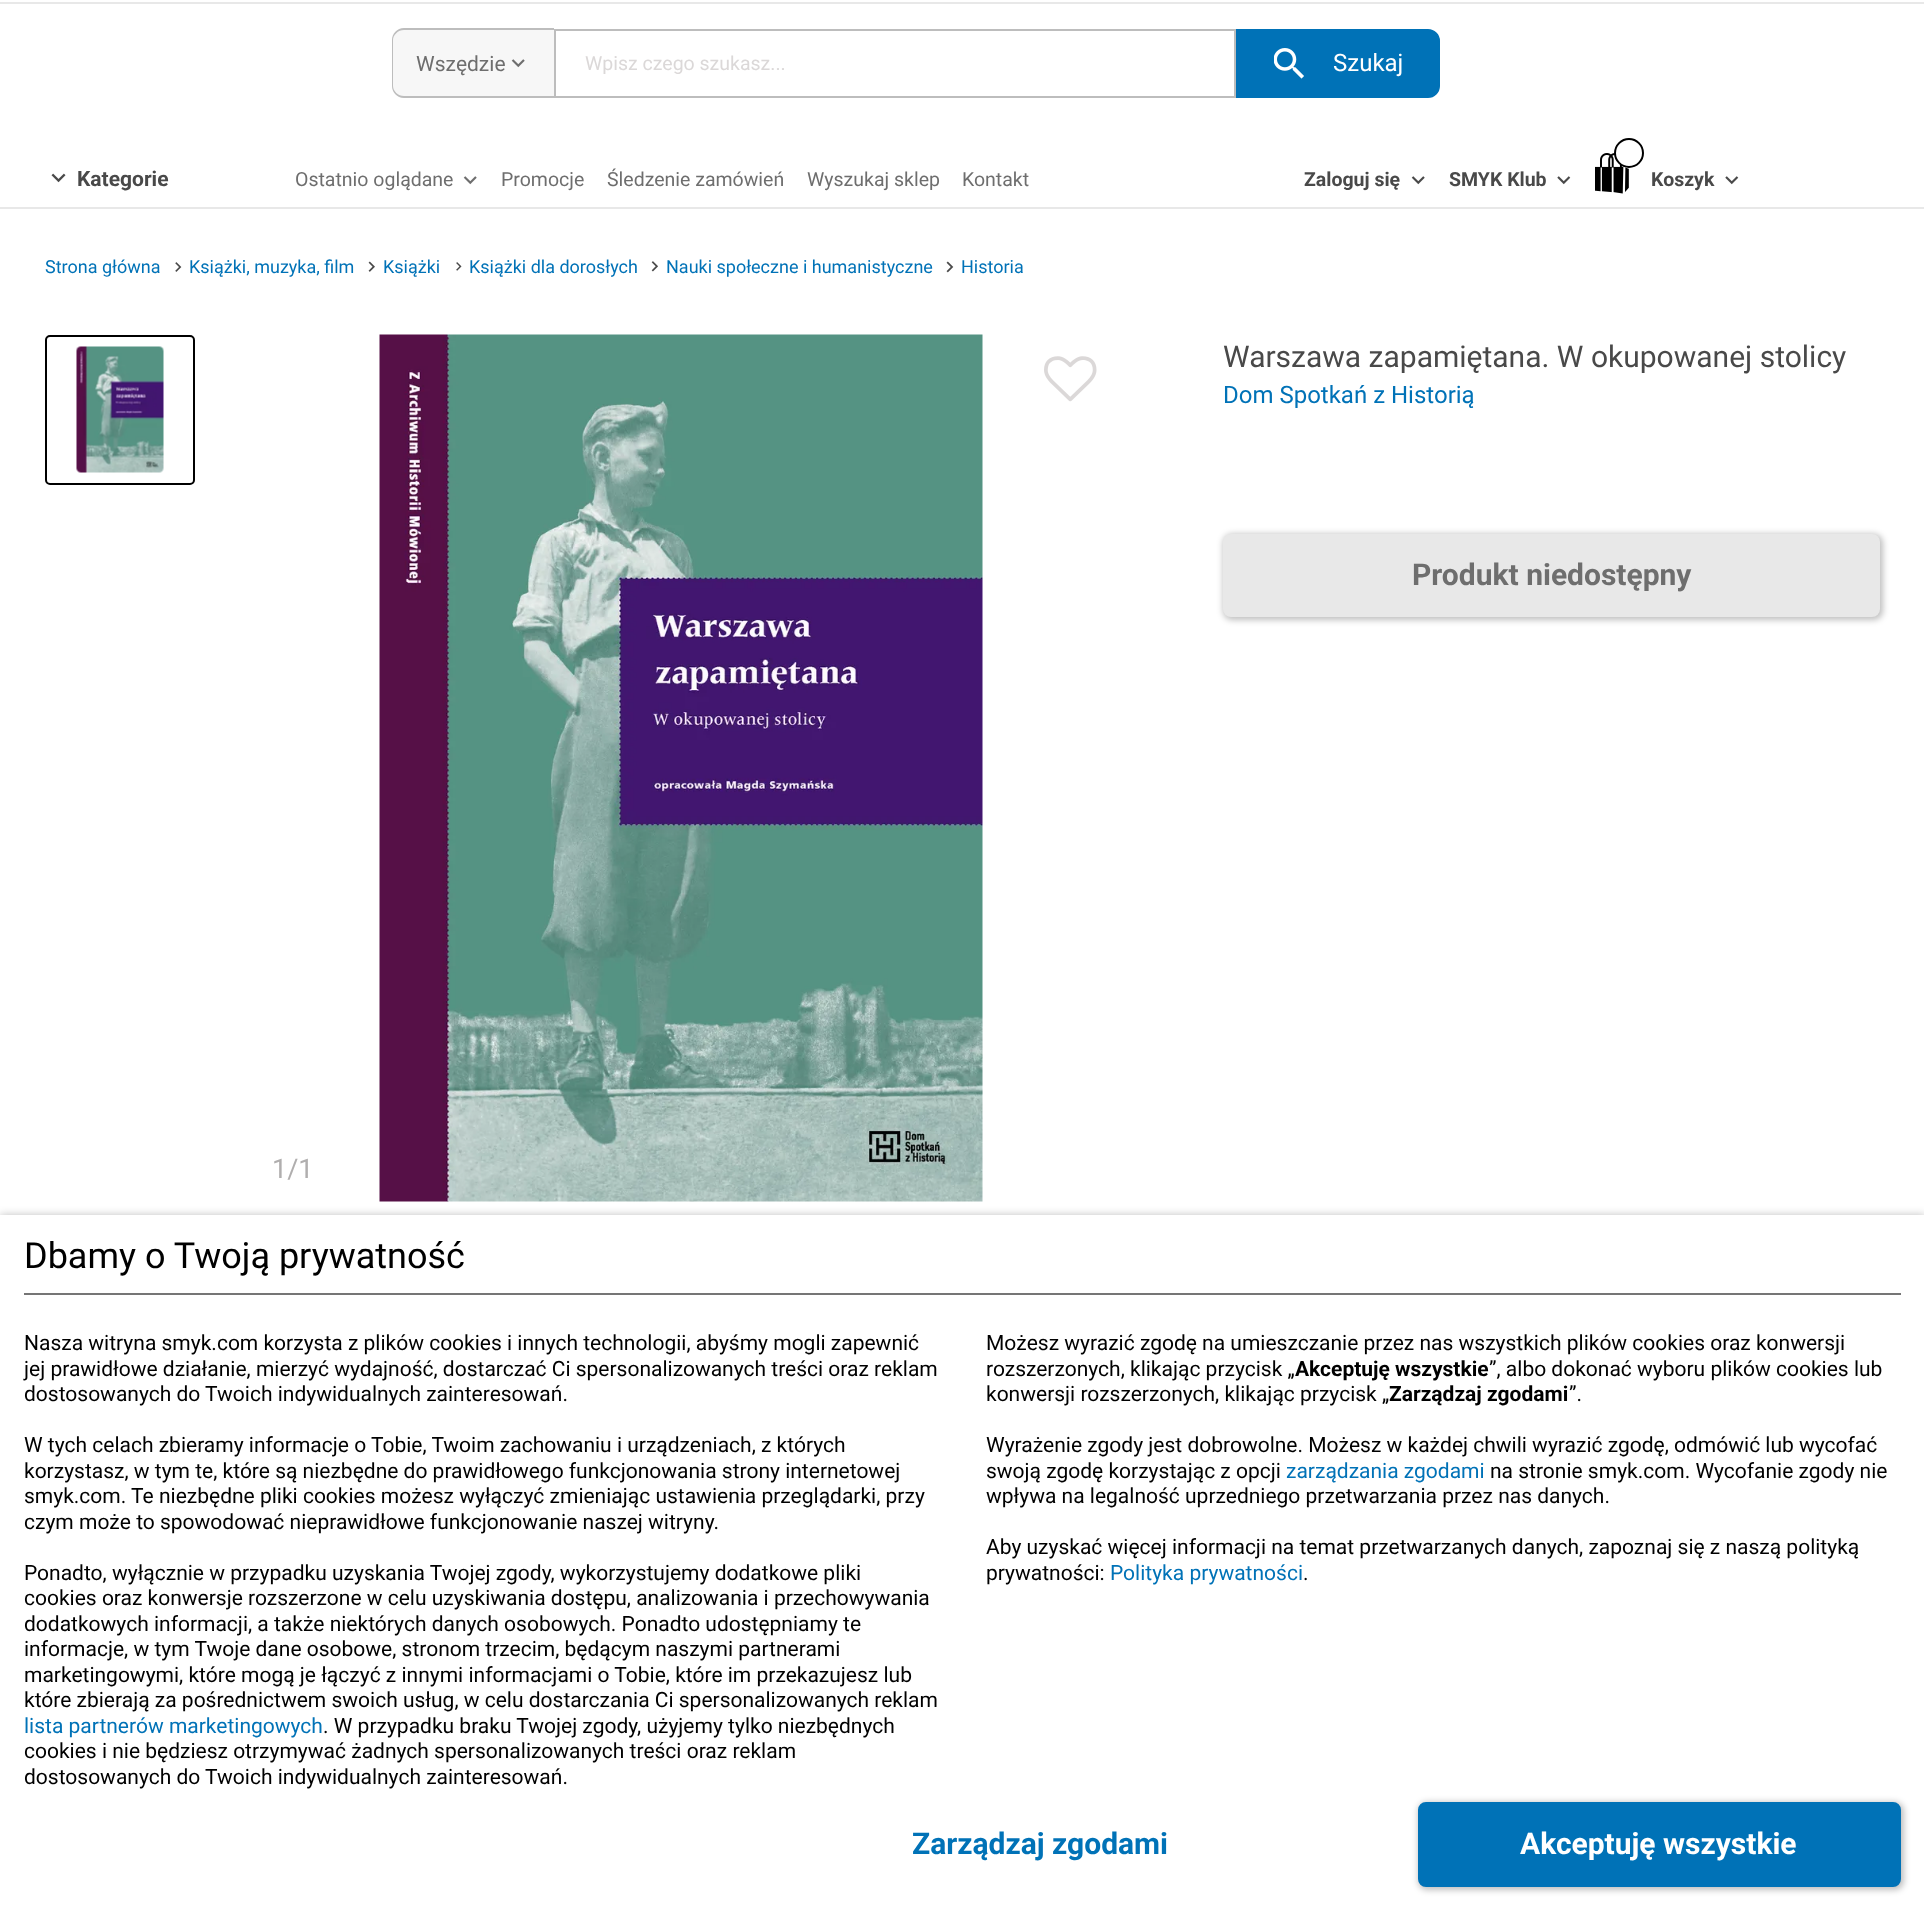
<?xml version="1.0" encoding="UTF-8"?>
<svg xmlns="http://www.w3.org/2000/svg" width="1924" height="1922">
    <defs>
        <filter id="blur1" x="-50%" y="-200%" width="200%" height="500%"><feGaussianBlur stdDeviation="4"/></filter>
        <filter id="blur2" x="-50%" y="-200%" width="200%" height="500%"><feGaussianBlur stdDeviation="3"/></filter>
    </defs>
    <rect width="100%" height="100%" fill="#FFFFFF"/>
    <rect x="0" y="207" width="1924" height="2" fill="#E8E8E8"/>
    <rect x="0" y="2" width="1924" height="2" fill="#E8E8E8"/>
    <path d="M 404 29 H 554 V 98 H 404 C 397.5 98 392 92.5 392 86 V 41 C 392 34.5 397.5 29 404 29 Z" fill="#F7F7F7"/>
    <path d="M 404 28 H 554 V 98 H 404 C 397 98 392 92 392 86 V 40 C 392 34 397 28 404 28 Z M 404 30 H 554 V 96 H 404 C 398 96 393 91 393 86 V 40 C 393 35 398 30 404 30 Z" fill="#BDBDBD" fill-rule="evenodd"/>
    <text x="416" y="71" font-family="Roboto" font-size="21" fill="#6E6E6E">Wszędzie</text>
    <image x="511" y="59" width="14" height="9" href="img_01.png"/>
    <rect x="555" y="30" width="680" height="67" fill="none" stroke="#BDBDBD" stroke-width="2"/>
    <text x="585" y="70" font-family="Roboto" font-size="19.5" fill="#DBD8D8">Wpisz czego szukasz...</text>
    <path d="M 1237 30 H 1428 C 1434 30 1439 35 1439 41 V 86 C 1439 92 1434 97 1428 97 H 1237 Z" fill="#0072B7" stroke="#0072B7" stroke-width="2"/>
    <image x="1274" y="48" width="30" height="31" href="img_02.png"/>
    <text x="1333" y="71" font-family="Roboto" font-size="24" fill="#FFFFFF">Szukaj</text>
    <image x="51" y="173" width="15" height="10" href="img_03.png"/>
    <text x="77" y="186" font-family="Roboto" font-size="21" font-weight="700" fill="#494949">Kategorie</text>
    <text x="295" y="186" font-family="Roboto" font-size="19.5" fill="#6E6E6E">Ostatnio oglądane</text>
    <image x="463" y="176" width="14" height="9" href="img_04.png"/>
    <text x="501" y="186" font-family="Roboto" font-size="19.5" fill="#6E6E6E">Promocje</text>
    <text x="607" y="186" font-family="Roboto" font-size="19.5" fill="#6E6E6E">Śledzenie zamówień</text>
    <text x="807" y="186" font-family="Roboto" font-size="19.5" fill="#6E6E6E">Wyszukaj sklep</text>
    <text x="962" y="186" font-family="Roboto" font-size="19.5" fill="#6E6E6E">Kontakt</text>
    <text x="1304" y="186" font-family="Roboto" font-size="19.5" font-weight="700" fill="#494949">Zaloguj się</text>
    <image x="1411" y="176" width="14" height="9" href="img_05.png"/>
    <text x="1449" y="186" font-family="Roboto" font-size="19.5" font-weight="700" fill="#494949">SMYK Klub</text>
    <image x="1557" y="176" width="14" height="9" href="img_06.png"/>
    <image x="1595" y="153" width="34" height="41" href="img_07.png"/>
    <circle cx="1629" cy="153" r="14" fill="#FFFFFF" stroke="#000000" stroke-width="2"/>
    <text x="1651" y="186" font-family="Roboto" font-size="19.5" font-weight="700" fill="#494949">Koszyk</text>
    <image x="1725" y="176" width="14" height="9" href="img_06.png"/>
    <rect x="0" y="1215" width="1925" height="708" fill="#000000" fill-opacity="0.25" filter="url(#blur1)"/>
    <rect x="0" y="1215" width="1924" height="707" fill="#FFFFFF"/>
    <rect x="24" y="1293" width="1877" height="2" fill="#757575"/>
    <text x="24" y="1268" font-family="Roboto" font-size="36" fill="#000000">Dbamy o Twoją prywatność</text>
    <text font-family="Roboto" font-size="21" fill="#000000">
        <tspan x="24" y="1350">Nasza witryna smyk.com korzysta z plików cookies i innych technologii, abyśmy mogli zapewnić</tspan>
        <tspan x="24" y="1376">jej prawidłowe działanie, mierzyć wydajność, dostarczać Ci spersonalizowanych treści oraz reklam</tspan>
        <tspan x="24" y="1401">dostosowanych do Twoich indywidualnych zainteresowań.</tspan>
    </text>
    <text font-family="Roboto" font-size="21" fill="#000000">
        <tspan x="24" y="1452">W tych celach zbieramy informacje o Tobie, Twoim zachowaniu i urządzeniach, z których</tspan>
        <tspan x="24" y="1478">korzystasz, w tym te, które są niezbędne do prawidłowego funkcjonowania strony internetowej</tspan>
        <tspan x="24" y="1503">smyk.com. Te niezbędne pliki cookies możesz wyłączyć zmieniając ustawienia przeglądarki, przy</tspan>
        <tspan x="24" y="1529">czym może to spowodować nieprawidłowe funkcjonowanie naszej witryny.</tspan>
    </text>
    <text font-family="Roboto" font-size="21" fill="#000000">
        <tspan x="24" y="1580">Ponadto, wyłącznie w przypadku uzyskania Twojej zgody, wykorzystujemy dodatkowe pliki</tspan>
        <tspan x="24" y="1605">cookies oraz konwersje rozszerzone w celu uzyskiwania dostępu, analizowania i przechowywania</tspan>
        <tspan x="24" y="1631">dodatkowych informacji, a także niektórych danych osobowych. Ponadto udostępniamy te</tspan>
        <tspan x="24" y="1656">informacje, w tym Twoje dane osobowe, stronom trzecim, będącym naszymi partnerami</tspan>
        <tspan x="24" y="1682">marketingowymi, które mogą je łączyć z innymi informacjami o Tobie, które im przekazujesz lub</tspan>
        <tspan x="24" y="1707">które zbierają za pośrednictwem swoich usług, w celu dostarczania Ci spersonalizowanych reklam</tspan>
    </text>
    <text x="24" y="1733" font-family="Roboto" font-size="21" fill="#0072B7">lista partnerów marketingowych</text>
    <text x="323" y="1733" font-family="Roboto" font-size="21" fill="#000000">. W przypadku braku Twojej zgody, użyjemy tylko niezbędnych</text>
    <text font-family="Roboto" font-size="21" fill="#000000">
        <tspan x="24" y="1758">cookies i nie będziesz otrzymywać żadnych spersonalizowanych treści oraz reklam</tspan>
        <tspan x="24" y="1784">dostosowanych do Twoich indywidualnych zainteresowań.</tspan>
    </text>
    <text font-family="Roboto" font-size="21" fill="#000000">
        <tspan x="986" y="1350">Możesz wyrazić zgodę na umieszczanie przez nas wszystkich plików cookies oraz konwersji</tspan>
        <tspan x="986" y="1376">rozszerzonych, klikając przycisk „</tspan>
    </text>
    <text x="1295" y="1376" font-family="Roboto" font-size="21" font-weight="700" fill="#000000">Akceptuję wszystkie</text>
    <text x="1489" y="1376" font-family="Roboto" font-size="21" fill="#000000">”, albo dokonać wyboru plików cookies lub</text>
    <text x="986" y="1401" font-family="Roboto" font-size="21" fill="#000000">konwersji rozszerzonych, klikając przycisk „</text>
    <text x="1389" y="1401" font-family="Roboto" font-size="21" font-weight="700" fill="#000000">Zarządzaj zgodami</text>
    <text x="1569" y="1401" font-family="Roboto" font-size="21" fill="#000000">”.</text>
    <text font-family="Roboto" font-size="21" fill="#000000">
        <tspan x="986" y="1452">Wyrażenie zgody jest dobrowolne. Możesz w każdej chwili wyrazić zgodę, odmówić lub wycofać</tspan>
        <tspan x="986" y="1478">swoją zgodę korzystając z opcji</tspan>
    </text>
    <text x="1286" y="1478" font-family="Roboto" font-size="21" fill="#0072B7">zarządzania zgodami</text>
    <text x="1490" y="1478" font-family="Roboto" font-size="21" fill="#000000">na stronie smyk.com. Wycofanie zgody nie</text>
    <text x="986" y="1503" font-family="Roboto" font-size="21" fill="#000000">wpływa na legalność uprzedniego przetwarzania przez nas danych.</text>
    <text font-family="Roboto" font-size="21" fill="#000000">
        <tspan x="986" y="1554">Aby uzyskać więcej informacji na temat przetwarzanych danych, zapoznaj się z naszą polityką</tspan>
        <tspan x="986" y="1580">prywatności:</tspan>
    </text>
    <text x="1110" y="1580" font-family="Roboto" font-size="21" fill="#0072B7">Polityka prywatności</text>
    <text x="1303" y="1580" font-family="Roboto" font-size="21" fill="#000000">.</text>
    <text x="912" y="1854" font-family="Roboto" font-size="30" font-weight="700" fill="#0072B7">Zarządzaj zgodami</text>
    <rect x="1418" y="1802" width="486" height="88" rx="9" fill="#000000" fill-opacity="0.25" filter="url(#blur2)"/>
    <rect x="1419" y="1803" width="481" height="83" rx="7" fill="#0072B7" stroke="#0072B7" stroke-width="2"/>
    <text x="1520" y="1854" font-family="Roboto" font-size="30" font-weight="700" fill="#FFFFFF">Akceptuję wszystkie</text>
    <text x="45" y="273" font-family="Roboto" font-size="18" fill="#0072B7">Strona główna</text>
    <image x="175" y="262" width="7" height="10" href="img_08.png"/>
    <text x="189" y="273" font-family="Roboto" font-size="18" fill="#0072B7">Książki, muzyka, film</text>
    <image x="368" y="261" width="7" height="11" href="img_09.png"/>
    <text x="383" y="273" font-family="Roboto" font-size="18" fill="#0072B7">Książki</text>
    <image x="456" y="262" width="6" height="9" href="img_10.png"/>
    <text x="469" y="273" font-family="Roboto" font-size="18" fill="#0072B7">Książki dla dorosłych</text>
    <image x="651" y="261" width="7" height="11" href="img_11.png"/>
    <text x="666" y="273" font-family="Roboto" font-size="18" fill="#0072B7">Nauki społeczne i humanistyczne</text>
    <image x="946" y="261" width="8" height="12" href="img_12.png"/>
    <text x="961" y="273" font-family="Roboto" font-size="18" fill="#0072B7">Historia</text>
    <text x="1223" y="367" font-family="Roboto" font-size="30" fill="#494949">Warszawa zapamiętana. W okupowanej stolicy</text>
    <text x="1223" y="403" font-family="Roboto" font-size="24" fill="#0072B7">Dom Spotkań z Historią</text>
    <rect x="1223" y="534" width="660" height="86" rx="9" fill="#000000" fill-opacity="0.25" filter="url(#blur2)"/>
    <rect x="1223" y="534" width="657" height="83" rx="8" fill="#E8E8E8"/>
    <text x="1412" y="585" font-family="Roboto" font-size="30" font-weight="700" fill="#6E6E6E">Produkt niedostępny</text>
    <image x="1044" y="356" width="53" height="46" href="img_13.png"/>
    <rect x="46" y="336" width="148" height="148" rx="4" fill="none" stroke="#000000" stroke-width="2"/>
    <image x="76" y="346" width="88" height="127" href="img_14.png"/>
    <image x="379" y="334" width="604" height="868" href="img_15.png"/>
    <text x="272" y="1178" font-family="Roboto" font-size="27" fill="#B0AEAE">1/1</text>
</svg>
